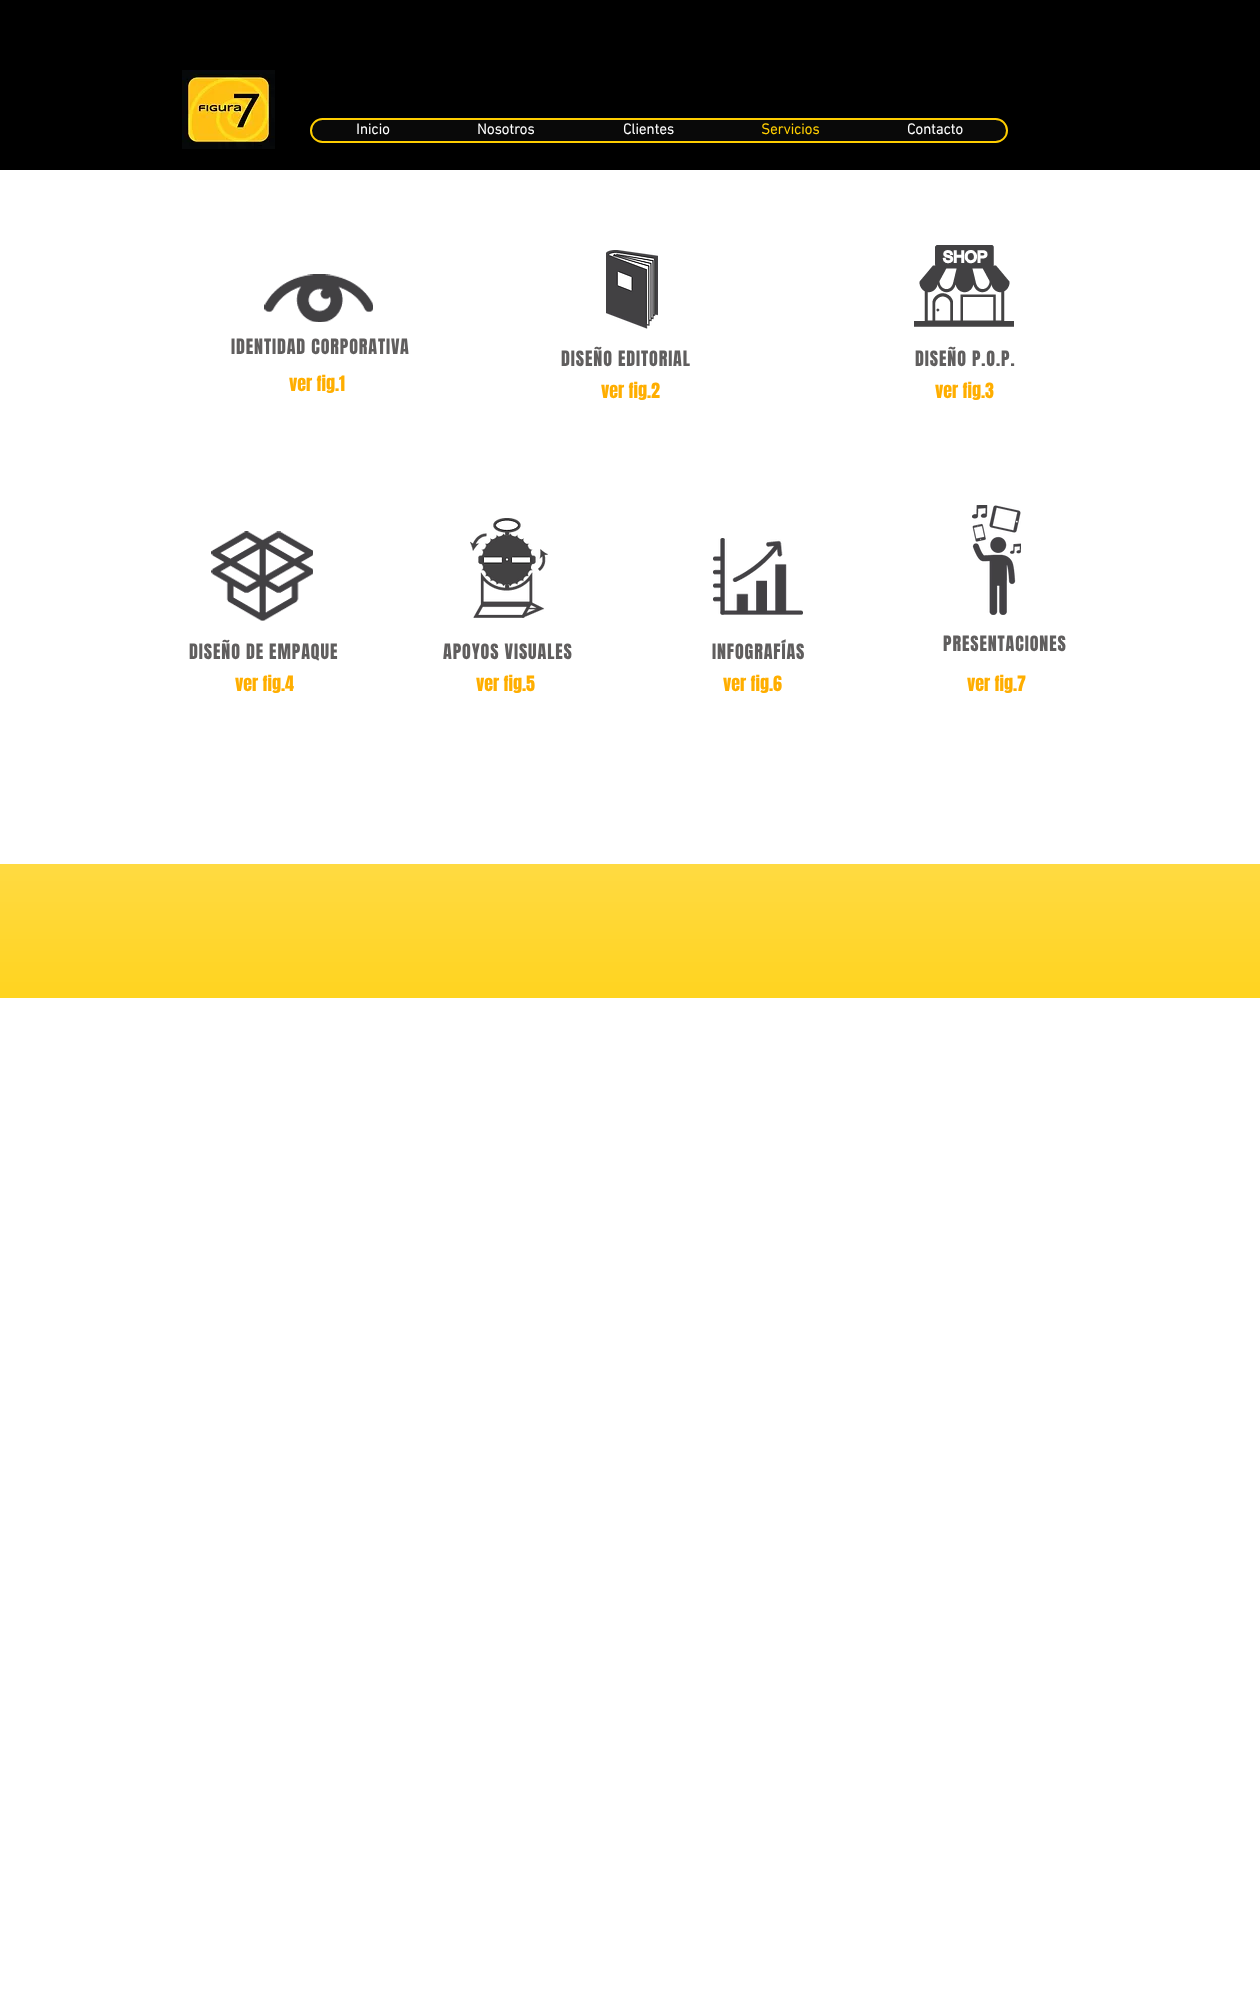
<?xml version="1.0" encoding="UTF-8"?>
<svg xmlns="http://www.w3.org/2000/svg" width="1260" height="2010">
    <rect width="100%" height="100%" fill="#FFFFFF"/>
    <rect x="0" y="0" width="1260" height="170" fill="#000000"/>
    <image x="182" y="70" width="93" height="79" href="img_01.png"/>
    <rect x="311" y="119" width="696" height="23" rx="11.5" fill="#090909" stroke="#FFCE00" stroke-width="2"/>
    <text x="356" y="134" font-family="'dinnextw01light'" font-size="15" font-weight="700" fill="#FFFFFF">Inicio</text>
    <text x="477" y="134" font-family="'dinnextw01light'" font-size="15" font-weight="700" fill="#FFFFFF">Nosotros</text>
    <text x="623" y="134" font-family="'dinnextw01light'" font-size="15" font-weight="700" fill="#FFFFFF">Clientes</text>
    <text x="761" y="134" font-family="'dinnextw01light'" font-size="15" font-weight="700" fill="#FFCE00">Servicios</text>
    <text x="907" y="134" font-family="'dinnextw01light'" font-size="15" font-weight="700" fill="#FFFFFF">Contacto</text>
    <image x="264" y="274" width="109" height="48" href="img_02.png"/>
    <text x="231" y="354" font-family="Anton" font-size="18" letter-spacing="0.9" fill="#605E5E">IDENTIDAD CORPORATIVA</text>
    <text x="289" y="391" font-family="Anton" font-size="18" fill="#FFAE00">ver fig.1</text>
    <image x="606" y="250" width="52" height="79" href="img_03.png"/>
    <text x="561" y="366" font-family="Anton" font-size="18" letter-spacing="0.9" fill="#605E5E">DISEÑO EDITORIAL</text>
    <text x="601" y="398" font-family="Anton" font-size="18" fill="#FFAE00">ver fig.2</text>
    <image x="914" y="245" width="100" height="82" href="img_04.png"/>
    <text x="915" y="366" font-family="Anton" font-size="18" letter-spacing="0.9" fill="#605E5E">DISEÑO P.O.P.</text>
    <text x="935" y="398" font-family="Anton" font-size="18" fill="#FFAE00">ver fig.3</text>
    <image x="211" y="531" width="102" height="90" href="img_05.png"/>
    <text x="189" y="659" font-family="Anton" font-size="18" letter-spacing="0.9" fill="#605E5E">DISEÑO DE EMPAQUE</text>
    <text x="235" y="691" font-family="Anton" font-size="18" fill="#FFAE00">ver fig.4</text>
    <image x="470" y="518" width="78" height="100" href="img_06.png"/>
    <text x="443" y="659" font-family="Anton" font-size="18" letter-spacing="0.9" fill="#605E5E">APOYOS VISUALES</text>
    <text x="476" y="691" font-family="Anton" font-size="18" fill="#FFAE00">ver fig.5</text>
    <image x="713" y="538" width="90" height="77" href="img_07.png"/>
    <text x="712" y="659" font-family="Anton" font-size="18" letter-spacing="0.9" fill="#605E5E">INFOGRAFÍAS</text>
    <text x="723" y="691" font-family="Anton" font-size="18" fill="#FFAE00">ver fig.6</text>
    <image x="972" y="505" width="49" height="110" href="img_08.png"/>
    <text x="943" y="651" font-family="Anton" font-size="18" letter-spacing="0.9" fill="#605E5E">PRESENTACIONES</text>
    <text x="967" y="691" font-family="Anton" font-size="18" fill="#FFAE00">ver fig.7</text>
    <rect x="0" y="864" width="1260" height="134" fill="#FFCE00"/>
    <image x="0" y="864" width="1260" height="134" href="img_09.png"/>
</svg>
